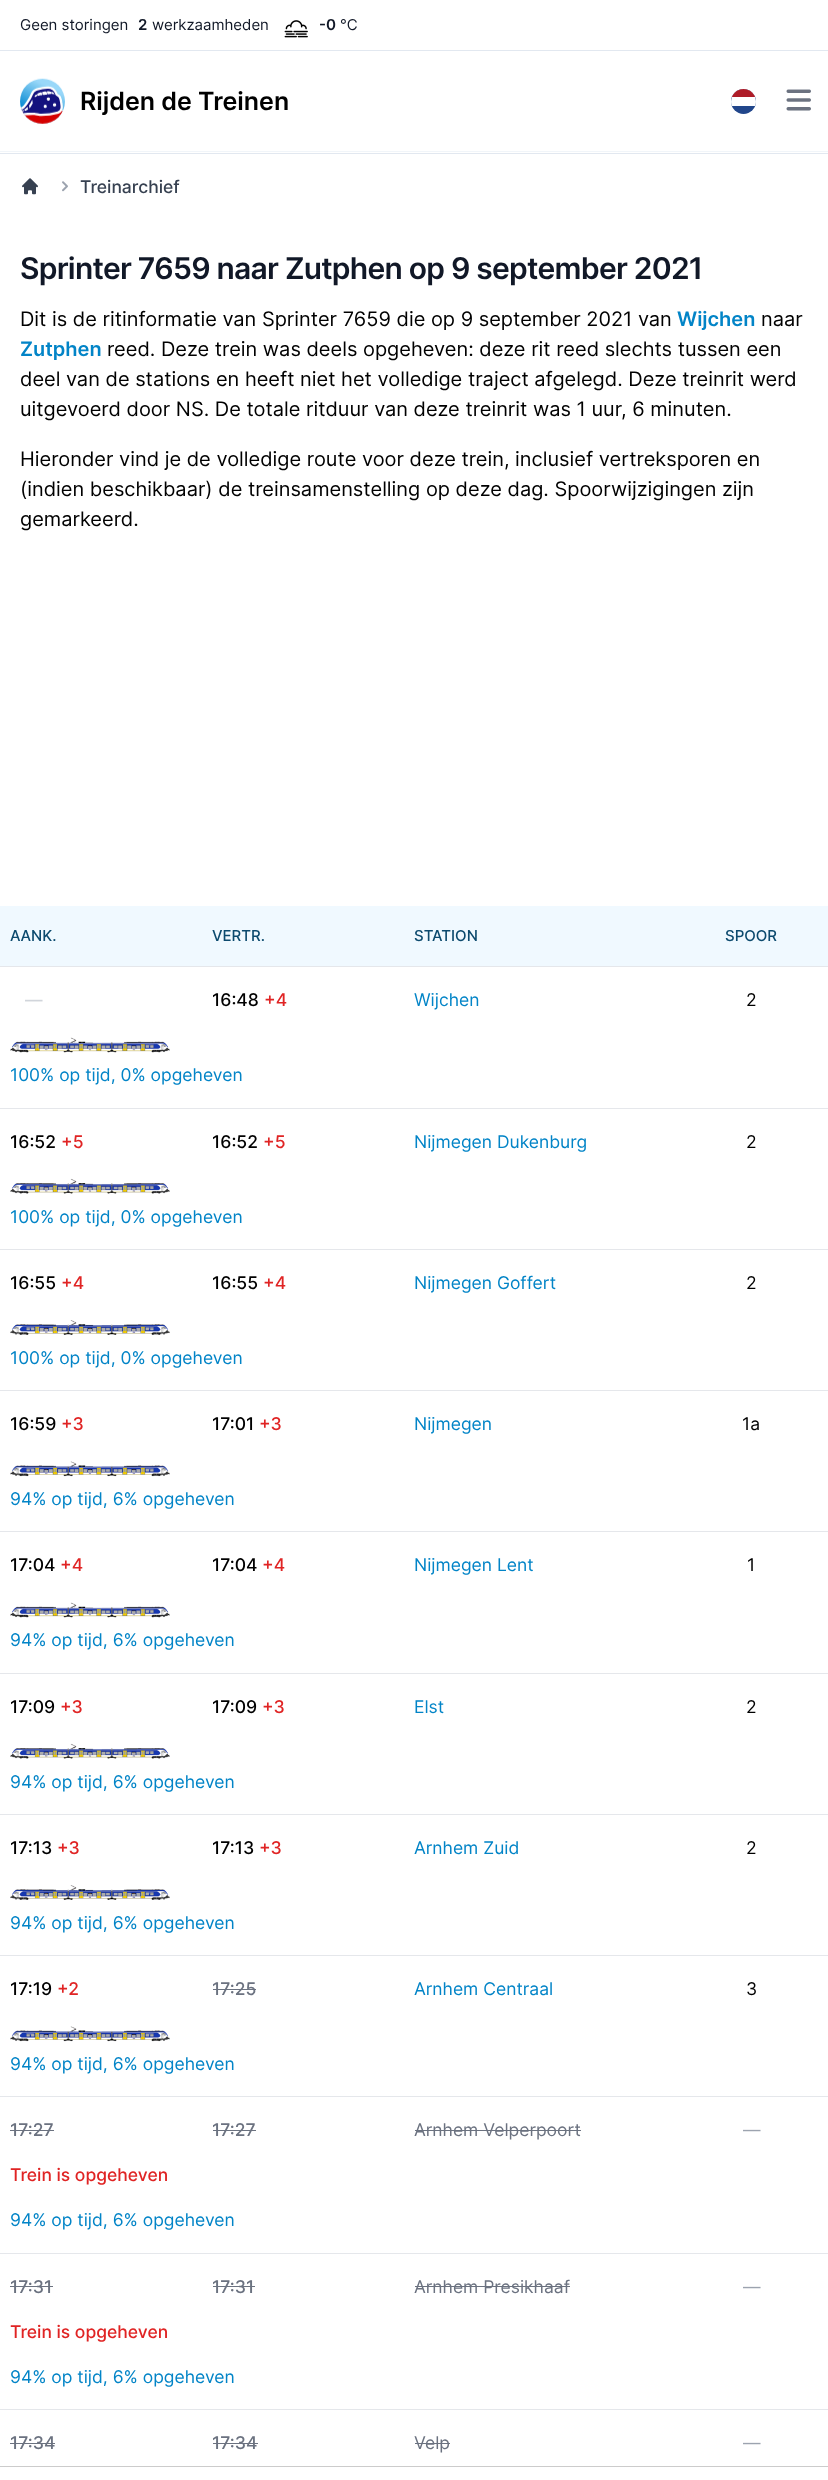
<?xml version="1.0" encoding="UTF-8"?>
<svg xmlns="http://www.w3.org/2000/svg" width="828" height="2480">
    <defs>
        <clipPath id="clip1"><rect x="731" y="89" width="25" height="25" rx="12.5"/></clipPath>
    </defs>
    <rect width="100%" height="100%" fill="#FFFFFF"/>
    <rect x="0" y="50" width="828" height="1" fill="#E2E8F0"/>
    <text x="20" y="30" font-family="Inter" font-size="15" fill="#111827">Geen storingen</text>
    <text x="138" y="30" font-family="Inter" font-size="15" font-weight="600" fill="#111827">2</text>
    <text x="152" y="30" font-family="Inter" font-size="15" fill="#111827">werkzaamheden</text>
    <image x="284" y="20" width="24" height="18" href="img_01.png"/>
    <text x="319" y="30" font-family="Inter" font-size="15" font-weight="600" fill="#111827">-0</text>
    <text x="340" y="30" font-family="Inter" font-size="15" fill="#111827">°C</text>
    <rect x="0" y="151" width="828" height="1" fill="#F1F5F9"/>
    <image x="20" y="78" width="45" height="46" href="img_02.png"/>
    <text x="80" y="110" font-family="Inter" font-size="25" font-weight="600" fill="#000000">Rijden de Treinen</text>
    <circle cx="743.5" cy="101.5" r="12.5" fill="#21468B"/>
    <g clip-path="url(#clip1)">
        <path d="M 743.5 89 C 750.5 89 756 94.5 756 101.5 V 106 H 731 V 101.5 C 731 94.5 736.5 89 743.5 89 Z" fill="#FFFFFF"/>
        <rect x="731" y="89" width="25" height="8" fill="#AE1C28"/>
    </g>
    <image x="786" y="89" width="25" height="22" href="img_03.png"/>
    <rect x="0" y="153" width="828" height="1" fill="#E2E8F0"/>
    <image x="22" y="178" width="16" height="17" href="img_04.png"/>
    <image x="62" y="181" width="6" height="11" href="img_05.png"/>
    <text x="80" y="193" font-family="Inter" font-size="17.5" font-weight="500" fill="#374151">Treinarchief</text>
    <text x="20" y="279" font-family="Inter" font-size="30" font-weight="600" letter-spacing="-0.75" fill="#111827">Sprinter 7659 naar Zutphen op 9 september 2021</text>
    <text x="20" y="326" font-family="Inter" font-size="20" fill="#000000">Dit is de ritinformatie van Sprinter 7659 die op 9 september 2021 van</text>
    <text x="677" y="326" font-family="Inter" font-size="20" font-weight="600" fill="#0284C7">Wijchen</text>
    <text x="761" y="326" font-family="Inter" font-size="20" fill="#000000">naar</text>
    <text x="20" y="356" font-family="Inter" font-size="20" font-weight="600" fill="#0284C7">Zutphen</text>
    <text x="107" y="356" font-family="Inter" font-size="20" fill="#000000">reed. Deze trein was deels opgeheven: deze rit reed slechts tussen een</text>
    <text font-family="Inter" font-size="20" fill="#000000">
        <tspan x="20" y="386">deel van de stations en heeft niet het volledige traject afgelegd. Deze treinrit werd</tspan>
        <tspan x="20" y="416">uitgevoerd door NS. De totale ritduur van deze treinrit was 1 uur, 6 minuten.</tspan>
    </text>
    <text font-family="Inter" font-size="20" fill="#000000">
        <tspan x="20" y="466">Hieronder vind je de volledige route voor deze trein, inclusief vertreksporen en</tspan>
        <tspan x="20" y="496">(indien beschikbaar) de treinsamenstelling op deze dag. Spoorwijzigingen zijn</tspan>
        <tspan x="20" y="526">gemarkeerd.</tspan>
    </text>
    <rect x="0" y="906" width="828" height="60" fill="#F0F9FF"/>
    <rect x="0" y="966" width="828" height="1" fill="#E5E7EB"/>
    <text x="10" y="941" font-family="Inter" font-size="15" font-weight="500" fill="#0C4A6E">AANK.</text>
    <text x="212" y="941" font-family="Inter" font-size="15" font-weight="500" fill="#0C4A6E">VERTR.</text>
    <text x="414" y="941" font-family="Inter" font-size="15" font-weight="500" fill="#0C4A6E">STATION</text>
    <text x="725" y="941" font-family="Inter" font-size="15" font-weight="500" fill="#0C4A6E">SPOOR</text>
    <rect x="0" y="1108" width="828" height="1" fill="#E5E7EB"/>
    <text x="25" y="1006" font-family="Inter" font-size="17.5" font-weight="500" fill="#D1D5DB">—</text>
    <text x="212" y="1006" font-family="Inter" font-size="17.5" font-weight="500" fill="#000000">16:48</text>
    <text x="264" y="1006" font-family="Inter" font-size="17.5" font-weight="500" fill="#E02424">+4</text>
    <text x="414" y="1006" font-family="Inter" font-size="17.5" fill="#0284C7">Wijchen</text>
    <text x="746" y="1006" font-family="Inter" font-size="17.5" fill="#000000">2</text>
    <image x="10" y="1037" width="160" height="16" href="img_06.png"/>
    <text x="10" y="1081" font-family="Inter" font-size="17.5" fill="#0284C7">100% op tijd, 0% opgeheven</text>
    <rect x="0" y="1249" width="828" height="1" fill="#E5E7EB"/>
    <text x="10" y="1148" font-family="Inter" font-size="17.5" font-weight="500" fill="#000000">16:52</text>
    <text x="61" y="1148" font-family="Inter" font-size="17.5" font-weight="500" fill="#E02424">+5</text>
    <text x="212" y="1148" font-family="Inter" font-size="17.5" font-weight="500" fill="#000000">16:52</text>
    <text x="263" y="1148" font-family="Inter" font-size="17.5" font-weight="500" fill="#E02424">+5</text>
    <text x="414" y="1148" font-family="Inter" font-size="17.5" fill="#0284C7">Nijmegen Dukenburg</text>
    <text x="746" y="1148" font-family="Inter" font-size="17.5" fill="#000000">2</text>
    <image x="10" y="1178" width="160" height="16" href="img_07.png"/>
    <text x="10" y="1223" font-family="Inter" font-size="17.5" fill="#0284C7">100% op tijd, 0% opgeheven</text>
    <rect x="0" y="1390" width="828" height="1" fill="#E5E7EB"/>
    <text x="10" y="1289" font-family="Inter" font-size="17.5" font-weight="500" fill="#000000">16:55</text>
    <text x="61" y="1289" font-family="Inter" font-size="17.5" font-weight="500" fill="#E02424">+4</text>
    <text x="212" y="1289" font-family="Inter" font-size="17.5" font-weight="500" fill="#000000">16:55</text>
    <text x="263" y="1289" font-family="Inter" font-size="17.5" font-weight="500" fill="#E02424">+4</text>
    <text x="414" y="1289" font-family="Inter" font-size="17.5" fill="#0284C7">Nijmegen Goffert</text>
    <text x="746" y="1289" font-family="Inter" font-size="17.5" fill="#000000">2</text>
    <image x="10" y="1320" width="160" height="15" href="img_08.png"/>
    <text x="10" y="1364" font-family="Inter" font-size="17.5" fill="#0284C7">100% op tijd, 0% opgeheven</text>
    <rect x="0" y="1531" width="828" height="1" fill="#E5E7EB"/>
    <text x="10" y="1430" font-family="Inter" font-size="17.5" font-weight="500" fill="#000000">16:59</text>
    <text x="61" y="1430" font-family="Inter" font-size="17.5" font-weight="500" fill="#E02424">+3</text>
    <text x="212" y="1430" font-family="Inter" font-size="17.5" font-weight="500" fill="#000000">17:01</text>
    <text x="259" y="1430" font-family="Inter" font-size="17.5" font-weight="500" fill="#E02424">+3</text>
    <text x="414" y="1430" font-family="Inter" font-size="17.5" fill="#0284C7">Nijmegen</text>
    <text x="742" y="1430" font-family="Inter" font-size="17.5" fill="#000000">1a</text>
    <image x="10" y="1461" width="160" height="16" href="img_09.png"/>
    <text x="10" y="1505" font-family="Inter" font-size="17.5" fill="#0284C7">94% op tijd, 6% opgeheven</text>
    <rect x="0" y="1673" width="828" height="1" fill="#E5E7EB"/>
    <text x="10" y="1571" font-family="Inter" font-size="17.5" font-weight="500" fill="#000000">17:04</text>
    <text x="60" y="1571" font-family="Inter" font-size="17.5" font-weight="500" fill="#E02424">+4</text>
    <text x="212" y="1571" font-family="Inter" font-size="17.5" font-weight="500" fill="#000000">17:04</text>
    <text x="262" y="1571" font-family="Inter" font-size="17.5" font-weight="500" fill="#E02424">+4</text>
    <text x="414" y="1571" font-family="Inter" font-size="17.5" fill="#0284C7">Nijmegen Lent</text>
    <text x="747" y="1571" font-family="Inter" font-size="17.5" fill="#000000">1</text>
    <image x="10" y="1602" width="160" height="16" href="img_06.png"/>
    <text x="10" y="1646" font-family="Inter" font-size="17.5" fill="#0284C7">94% op tijd, 6% opgeheven</text>
    <rect x="0" y="1814" width="828" height="1" fill="#E5E7EB"/>
    <text x="10" y="1713" font-family="Inter" font-size="17.5" font-weight="500" fill="#000000">17:09</text>
    <text x="60" y="1713" font-family="Inter" font-size="17.5" font-weight="500" fill="#E02424">+3</text>
    <text x="212" y="1713" font-family="Inter" font-size="17.5" font-weight="500" fill="#000000">17:09</text>
    <text x="262" y="1713" font-family="Inter" font-size="17.5" font-weight="500" fill="#E02424">+3</text>
    <text x="414" y="1713" font-family="Inter" font-size="17.5" fill="#0284C7">Elst</text>
    <text x="746" y="1713" font-family="Inter" font-size="17.5" fill="#000000">2</text>
    <image x="10" y="1743" width="160" height="16" href="img_07.png"/>
    <text x="10" y="1788" font-family="Inter" font-size="17.5" fill="#0284C7">94% op tijd, 6% opgeheven</text>
    <rect x="0" y="1955" width="828" height="1" fill="#E5E7EB"/>
    <text x="10" y="1854" font-family="Inter" font-size="17.5" font-weight="500" fill="#000000">17:13</text>
    <text x="57" y="1854" font-family="Inter" font-size="17.5" font-weight="500" fill="#E02424">+3</text>
    <text x="212" y="1854" font-family="Inter" font-size="17.5" font-weight="500" fill="#000000">17:13</text>
    <text x="259" y="1854" font-family="Inter" font-size="17.5" font-weight="500" fill="#E02424">+3</text>
    <text x="414" y="1854" font-family="Inter" font-size="17.5" fill="#0284C7">Arnhem Zuid</text>
    <text x="746" y="1854" font-family="Inter" font-size="17.5" fill="#000000">2</text>
    <image x="10" y="1885" width="160" height="15" href="img_08.png"/>
    <text x="10" y="1929" font-family="Inter" font-size="17.5" fill="#0284C7">94% op tijd, 6% opgeheven</text>
    <rect x="0" y="2096" width="828" height="1" fill="#E5E7EB"/>
    <text x="10" y="1995" font-family="Inter" font-size="17.5" font-weight="500" fill="#000000">17:19</text>
    <text x="57" y="1995" font-family="Inter" font-size="17.5" font-weight="500" fill="#E02424">+2</text>
    <text x="212" y="1995" font-family="Inter" font-size="17.5" font-weight="500" fill="#6B7280">17:25</text>
    <rect x="213" y="1989" width="43" height="1" fill="#6B7280"/>
    <text x="414" y="1995" font-family="Inter" font-size="17.5" fill="#0284C7">Arnhem Centraal</text>
    <text x="746" y="1995" font-family="Inter" font-size="17.5" fill="#000000">3</text>
    <image x="10" y="2026" width="160" height="16" href="img_09.png"/>
    <text x="10" y="2070" font-family="Inter" font-size="17.5" fill="#0284C7">94% op tijd, 6% opgeheven</text>
    <rect x="0" y="2253" width="828" height="1" fill="#E5E7EB"/>
    <text x="10" y="2136" font-family="Inter" font-size="17.5" font-weight="500" fill="#6B7280">17:27</text>
    <rect x="10" y="2130" width="44" height="1" fill="#6B7280"/>
    <text x="212" y="2136" font-family="Inter" font-size="17.5" font-weight="500" fill="#6B7280">17:27</text>
    <rect x="213" y="2130" width="43" height="1" fill="#6B7280"/>
    <text x="414" y="2136" font-family="Inter" font-size="17.5" fill="#6B7280">Arnhem Velperpoort</text>
    <rect x="415" y="2130" width="166" height="1" fill="#6B7280"/>
    <text x="743" y="2136" font-family="Inter" font-size="17.5" fill="#9CA3AF">—</text>
    <text x="10" y="2181" font-family="Inter" font-size="17.5" font-weight="500" fill="#E02424">Trein is opgeheven</text>
    <text x="10" y="2226" font-family="Inter" font-size="17.5" fill="#0284C7">94% op tijd, 6% opgeheven</text>
    <rect x="0" y="2409" width="828" height="1" fill="#E5E7EB"/>
    <text x="10" y="2293" font-family="Inter" font-size="17.5" font-weight="500" fill="#6B7280">17:31</text>
    <rect x="10" y="2286" width="43" height="1" fill="#6B7280"/>
    <text x="212" y="2293" font-family="Inter" font-size="17.5" font-weight="500" fill="#6B7280">17:31</text>
    <rect x="213" y="2286" width="42" height="1" fill="#6B7280"/>
    <text x="414" y="2293" font-family="Inter" font-size="17.5" fill="#6B7280">Arnhem Presikhaaf</text>
    <rect x="415" y="2286" width="155" height="1" fill="#6B7280"/>
    <text x="743" y="2293" font-family="Inter" font-size="17.5" fill="#9CA3AF">—</text>
    <text x="10" y="2338" font-family="Inter" font-size="17.5" font-weight="500" fill="#E02424">Trein is opgeheven</text>
    <text x="10" y="2383" font-family="Inter" font-size="17.5" fill="#0284C7">94% op tijd, 6% opgeheven</text>
    <text x="10" y="2449" font-family="Inter" font-size="17.5" font-weight="500" fill="#6B7280">17:34</text>
    <rect x="10" y="2443" width="45" height="1" fill="#6B7280"/>
    <text x="212" y="2449" font-family="Inter" font-size="17.5" font-weight="500" fill="#6B7280">17:34</text>
    <rect x="213" y="2443" width="45" height="1" fill="#6B7280"/>
    <text x="414" y="2449" font-family="Inter" font-size="17.5" fill="#6B7280">Velp</text>
    <rect x="415" y="2443" width="35" height="1" fill="#6B7280"/>
    <text x="743" y="2449" font-family="Inter" font-size="17.5" fill="#9CA3AF">—</text>
    <rect x="0" y="2466" width="828" height="1" fill="#CCCCCC"/>
</svg>
